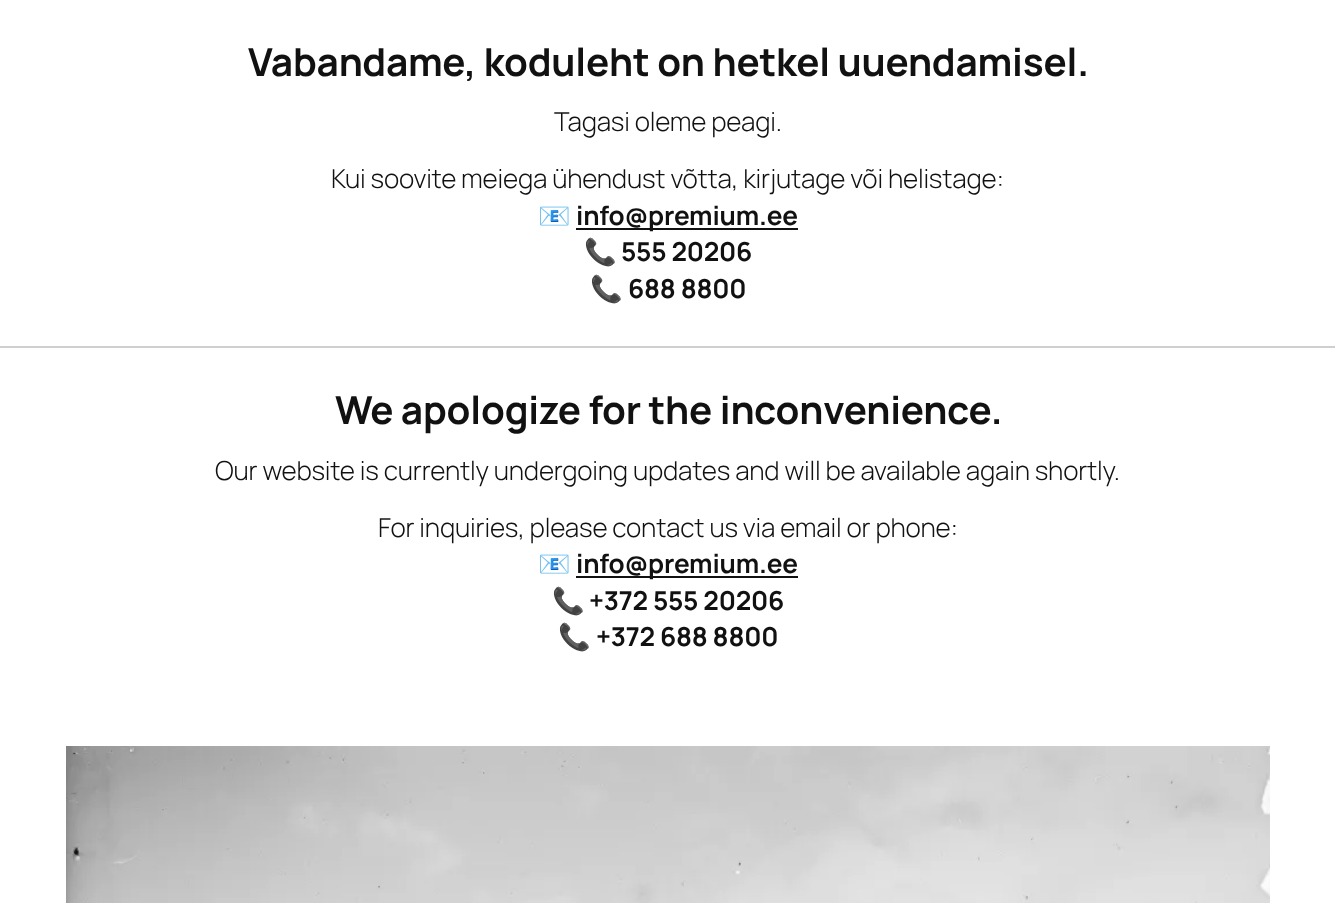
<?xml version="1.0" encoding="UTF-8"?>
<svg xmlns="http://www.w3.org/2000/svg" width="1335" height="903">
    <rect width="100%" height="100%" fill="#FFFFFF"/>
    <text x="248" y="76" font-family="Manrope" font-size="38.7" font-weight="700" letter-spacing="-0.2" fill="#111111">Vabandame, koduleht on hetkel uuendamisel.</text>
    <text x="554" y="131" font-family="Manrope" font-size="26.15" font-weight="300" letter-spacing="-0.2" fill="#111111">Tagasi oleme peagi.</text>
    <text x="331" y="188" font-family="Manrope" font-size="26.15" font-weight="300" letter-spacing="-0.2" fill="#111111">Kui soovite meiega ühendust võtta, kirjutage või helistage:</text>
    <text x="538" y="225" font-family="Noto Color Emoji" font-size="26.15" letter-spacing="-0.2" fill="#111111">📧</text>
    <rect x="576" y="228" width="222" height="2" fill="#111111"/>
    <text x="576" y="225" font-family="Manrope" font-size="26.15" font-weight="700" letter-spacing="-0.2" fill="#111111">info@premium.ee</text>
    <text x="584" y="261" font-family="Noto Color Emoji" font-size="26.15" letter-spacing="-0.2" fill="#111111">📞</text>
    <text x="621" y="261" font-family="Manrope" font-size="26.15" font-weight="700" letter-spacing="-0.2" fill="#111111">555 20206</text>
    <text x="590" y="298" font-family="Noto Color Emoji" font-size="26.15" letter-spacing="-0.2" fill="#111111">📞</text>
    <text x="628" y="298" font-family="Manrope" font-size="26.15" font-weight="700" letter-spacing="-0.2" fill="#111111">688 8800</text>
    <rect x="0" y="346" width="1335" height="2" fill="#CFCFCF"/>
    <text x="335" y="424" font-family="Manrope" font-size="38.7" font-weight="700" letter-spacing="-0.2" fill="#111111">We apologize for the inconvenience.</text>
    <text x="215" y="480" font-family="Manrope" font-size="26.15" font-weight="300" letter-spacing="-0.2" fill="#111111">Our website is currently undergoing updates and will be available again shortly.</text>
    <text x="378" y="537" font-family="Manrope" font-size="26.15" font-weight="300" letter-spacing="-0.2" fill="#111111">For inquiries, please contact us via email or phone:</text>
    <text x="538" y="573" font-family="Noto Color Emoji" font-size="26.15" letter-spacing="-0.2" fill="#111111">📧</text>
    <rect x="576" y="576" width="222" height="2" fill="#111111"/>
    <text x="576" y="573" font-family="Manrope" font-size="26.15" font-weight="700" letter-spacing="-0.2" fill="#111111">info@premium.ee</text>
    <text x="552" y="610" font-family="Noto Color Emoji" font-size="26.15" letter-spacing="-0.2" fill="#111111">📞</text>
    <text x="589" y="610" font-family="Manrope" font-size="26.15" font-weight="700" letter-spacing="-0.2" fill="#111111">+372 555 20206</text>
    <text x="558" y="646" font-family="Noto Color Emoji" font-size="26.15" letter-spacing="-0.2" fill="#111111">📞</text>
    <text x="596" y="646" font-family="Manrope" font-size="26.15" font-weight="700" letter-spacing="-0.2" fill="#111111">+372 688 8800</text>
    <image x="66" y="746" width="1204" height="157" href="img_01.png"/>
</svg>
